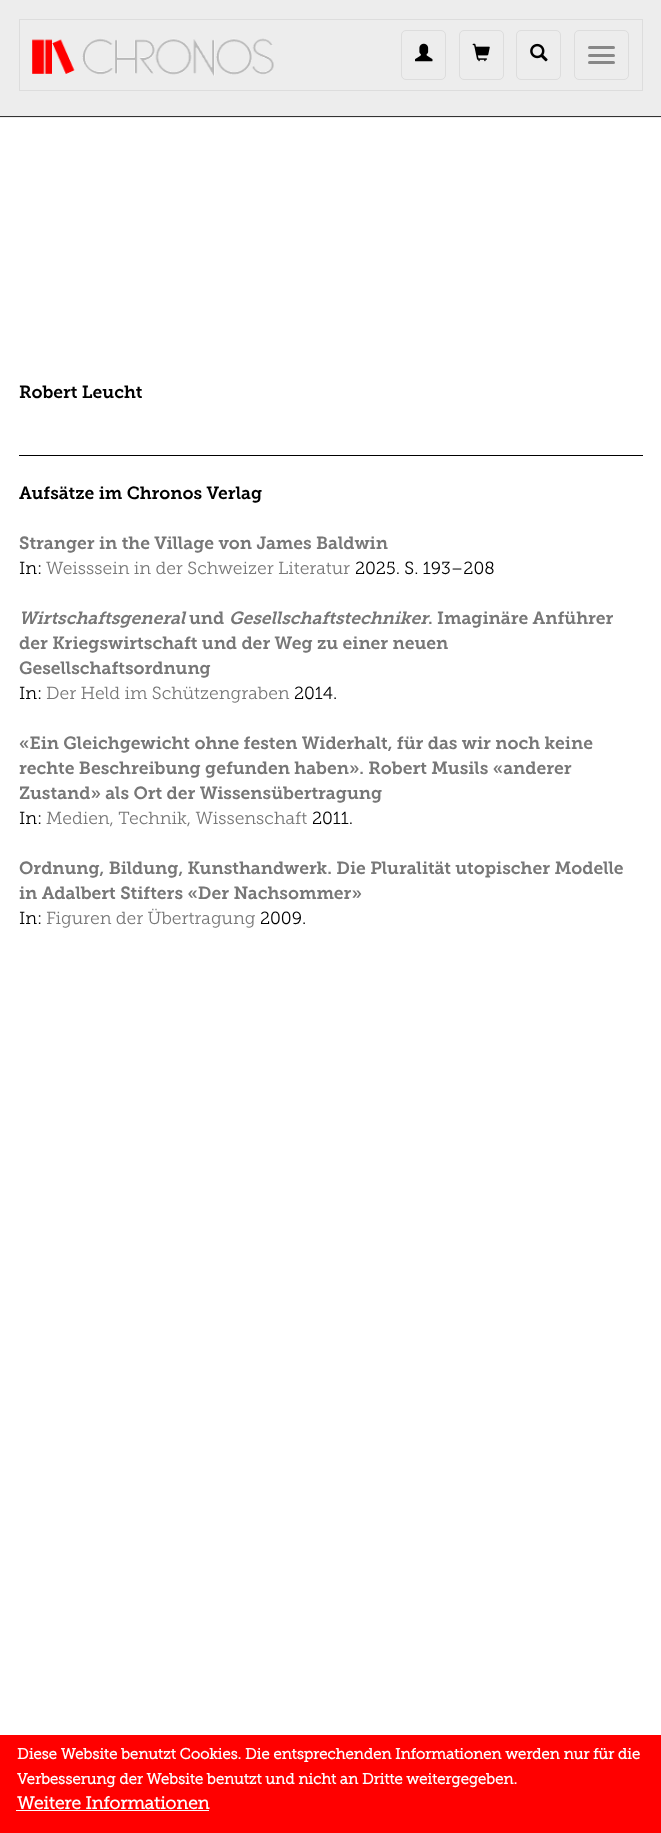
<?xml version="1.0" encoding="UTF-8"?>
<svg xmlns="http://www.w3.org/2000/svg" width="661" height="1833">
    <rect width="100%" height="100%" fill="#FFFFFF"/>
    <rect x="0" y="0" width="661" height="118" fill="#EDEDED"/>
    <rect x="0" y="116" width="661" height="1" fill="#333333"/>
    <rect x="19.5" y="19.5" width="623" height="71" fill="none" stroke="#DDDDDD"/>
    <image x="32" y="38" width="242" height="38" href="img_01.png"/>
    <rect x="401.5" y="30.5" width="44" height="49" rx="4.5" fill="none" stroke="#DDDDDD"/>
    <image x="415" y="43" width="18" height="19" href="img_02.png"/>
    <rect x="459.5" y="30.5" width="44" height="49" rx="4.5" fill="none" stroke="#DDDDDD"/>
    <image x="472" y="43" width="18" height="19" href="img_03.png"/>
    <rect x="516.5" y="30.5" width="44" height="49" rx="4.5" fill="none" stroke="#DDDDDD"/>
    <image x="530" y="43" width="18" height="19" href="img_04.png"/>
    <rect x="574.5" y="30.5" width="54" height="49" rx="4.5" fill="none" stroke="#DDDDDD"/>
    <rect x="588" y="46" width="27" height="3" rx="1.5" fill="#888888"/>
    <rect x="588" y="54" width="27" height="3" rx="1.5" fill="#888888"/>
    <rect x="588" y="61" width="27" height="3" rx="1.5" fill="#888888"/>
    <text x="19" y="398" font-family="Museo Slab" font-size="17.5" font-weight="600" fill="#000000">Robert Leucht</text>
    <rect x="19" y="455" width="624" height="1" fill="#000000"/>
    <text x="19" y="499" font-family="Museo Slab" font-size="17.5" font-weight="600" fill="#000000">Aufsätze im Chronos Verlag</text>
    <text x="19" y="549" font-family="Museo Slab" font-size="17.5" font-weight="600" fill="#777777">Stranger in the Village von James Baldwin</text>
    <text x="19" y="574" font-family="Museo Slab" font-size="17.5" font-weight="300" fill="#000000">In:</text>
    <text x="46" y="574" font-family="Museo Slab" font-size="17.5" font-weight="300" fill="#777777">Weisssein in der Schweizer Literatur</text>
    <text x="355" y="574" font-family="Museo Slab" font-size="17.5" font-weight="300" fill="#000000">2025. S. 193–208</text>
    <text x="19" y="624" font-family="Museo Slab" font-size="17.5" font-weight="600" font-style="italic" fill="#777777">Wirtschaftsgeneral</text>
    <text x="189" y="624" font-family="Museo Slab" font-size="17.5" font-weight="600" fill="#777777">und</text>
    <text x="229" y="624" font-family="Museo Slab" font-size="17.5" font-weight="600" font-style="italic" fill="#777777">Gesellschaftstechniker</text>
    <text x="428" y="624" font-family="Museo Slab" font-size="17.5" font-weight="600" fill="#777777">. Imaginäre Anführer</text>
    <text font-family="Museo Slab" font-size="17.5" font-weight="600" fill="#777777">
        <tspan x="19" y="649">der Kriegswirtschaft und der Weg zu einer neuen</tspan>
        <tspan x="19" y="674">Gesellschaftsordnung</tspan>
    </text>
    <text x="19" y="699" font-family="Museo Slab" font-size="17.5" font-weight="300" fill="#000000">In:</text>
    <text x="46" y="699" font-family="Museo Slab" font-size="17.5" font-weight="300" fill="#777777">Der Held im Schützengraben</text>
    <text x="294" y="699" font-family="Museo Slab" font-size="17.5" font-weight="300" fill="#000000">2014.</text>
    <text font-family="Museo Slab" font-size="17.5" font-weight="600" fill="#777777">
        <tspan x="19" y="749">«Ein Gleichgewicht ohne festen Widerhalt, für das wir noch keine</tspan>
        <tspan x="19" y="774">rechte Beschreibung gefunden haben». Robert Musils «anderer</tspan>
        <tspan x="19" y="799">Zustand» als Ort der Wissensübertragung</tspan>
    </text>
    <text x="19" y="824" font-family="Museo Slab" font-size="17.5" font-weight="300" fill="#000000">In:</text>
    <text x="46" y="824" font-family="Museo Slab" font-size="17.5" font-weight="300" fill="#777777">Medien, Technik, Wissenschaft</text>
    <text x="312" y="824" font-family="Museo Slab" font-size="17.5" font-weight="300" fill="#000000">2011.</text>
    <text font-family="Museo Slab" font-size="17.5" font-weight="600" fill="#777777">
        <tspan x="19" y="874">Ordnung, Bildung, Kunsthandwerk. Die Pluralität utopischer Modelle</tspan>
        <tspan x="19" y="899">in Adalbert Stifters «Der Nachsommer»</tspan>
    </text>
    <text x="19" y="924" font-family="Museo Slab" font-size="17.5" font-weight="300" fill="#000000">In:</text>
    <text x="46" y="924" font-family="Museo Slab" font-size="17.5" font-weight="300" fill="#777777">Figuren der Übertragung</text>
    <text x="260" y="924" font-family="Museo Slab" font-size="17.5" font-weight="300" fill="#000000">2009.</text>
    <rect x="0" y="1735" width="661" height="98" fill="#FF0000"/>
    <text font-family="Museo Slab" font-size="15" font-weight="700" fill="#FFFFFF">
        <tspan x="17" y="1759">Diese Website benutzt Cookies. Die entsprechenden Informationen werden nur für die</tspan>
        <tspan x="17" y="1784">Verbesserung der Website benutzt und nicht an Dritte weitergegeben.</tspan>
    </text>
    <text x="17" y="1809" font-family="Museo Slab" font-size="17.5" font-weight="700" fill="#FFFFFF">Weitere Informationen</text>
    <rect x="16" y="1810" width="193" height="1" fill="#FFFFFF"/>
</svg>
